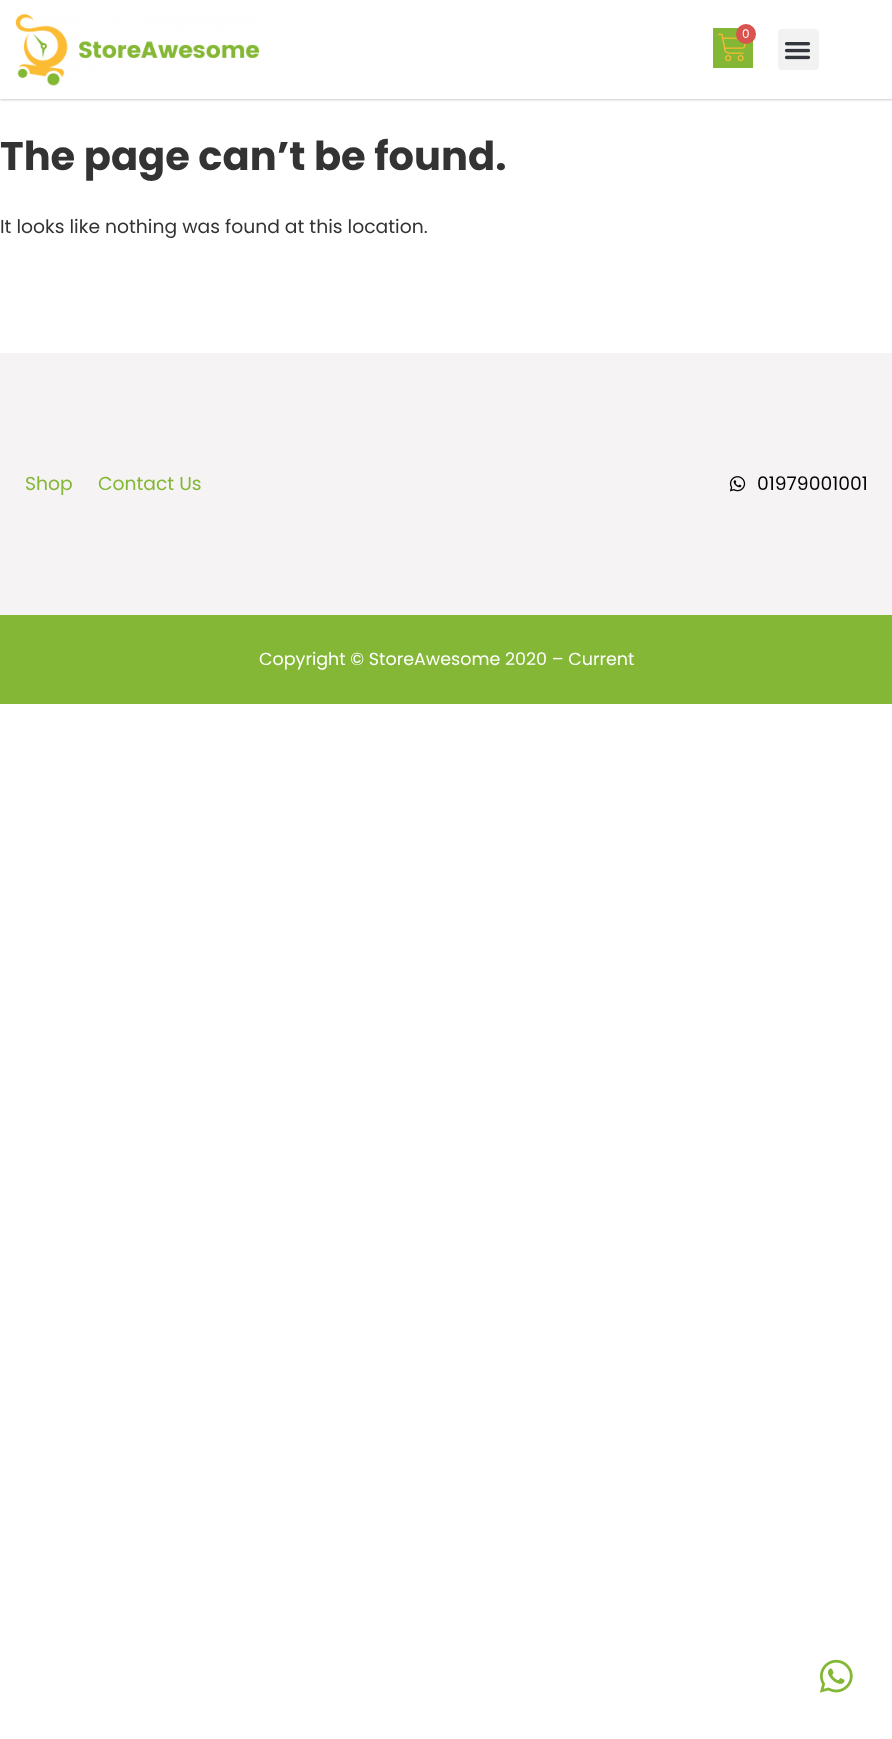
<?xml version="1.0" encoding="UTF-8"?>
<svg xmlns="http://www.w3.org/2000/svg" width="892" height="1739">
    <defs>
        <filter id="blur1" x="-50%" y="-200%" width="200%" height="500%"><feGaussianBlur stdDeviation="1"/></filter>
    </defs>
    <rect width="100%" height="100%" fill="#FFFFFF"/>
    <rect x="0" y="1" width="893" height="99" fill="#000000" fill-opacity="0.2" filter="url(#blur1)"/>
    <rect x="0" y="0" width="892" height="99" fill="#FFFFFF"/>
    <image x="15" y="14" width="245" height="72" href="img_01.png"/>
    <rect x="713" y="28" width="40" height="40" fill="#83B735"/>
    <image x="718" y="33" width="28" height="29" href="img_02.png"/>
    <circle cx="746" cy="34" r="10" fill="#D9534F"/>
    <text x="742" y="38" font-family="Poppins" font-size="12" fill="#FFFFFF">0</text>
    <rect x="778" y="29" width="41" height="41" rx="4" fill="#F2F2F2"/>
    <image x="784" y="42" width="27" height="18" href="img_03.png"/>
    <text x="0" y="170" font-family="Poppins" font-size="40" font-weight="700" fill="#333333">The page can’t be found.</text>
    <text x="0" y="233" font-family="Poppins" font-size="18.75" fill="#333333">It looks like nothing was found at this location.</text>
    <rect x="0" y="353" width="892" height="262" fill="#F5F3F3"/>
    <text x="25" y="490" font-family="Poppins" font-size="18.75" fill="#83B735">Shop</text>
    <text x="98" y="490" font-family="Poppins" font-size="18.75" fill="#83B735">Contact Us</text>
    <image x="729" y="476" width="17" height="16" href="img_04.png"/>
    <text x="757" y="490" font-family="Poppins" font-size="18.75" fill="#000000">01979001001</text>
    <rect x="0" y="615" width="892" height="89" fill="#83B735"/>
    <text x="259" y="665" font-family="Poppins" font-size="17.5" fill="#FFFFFF">Copyright © StoreAwesome 2020 – Current</text>
    <image x="819" y="1659" width="34" height="34" href="img_05.png"/>
</svg>
